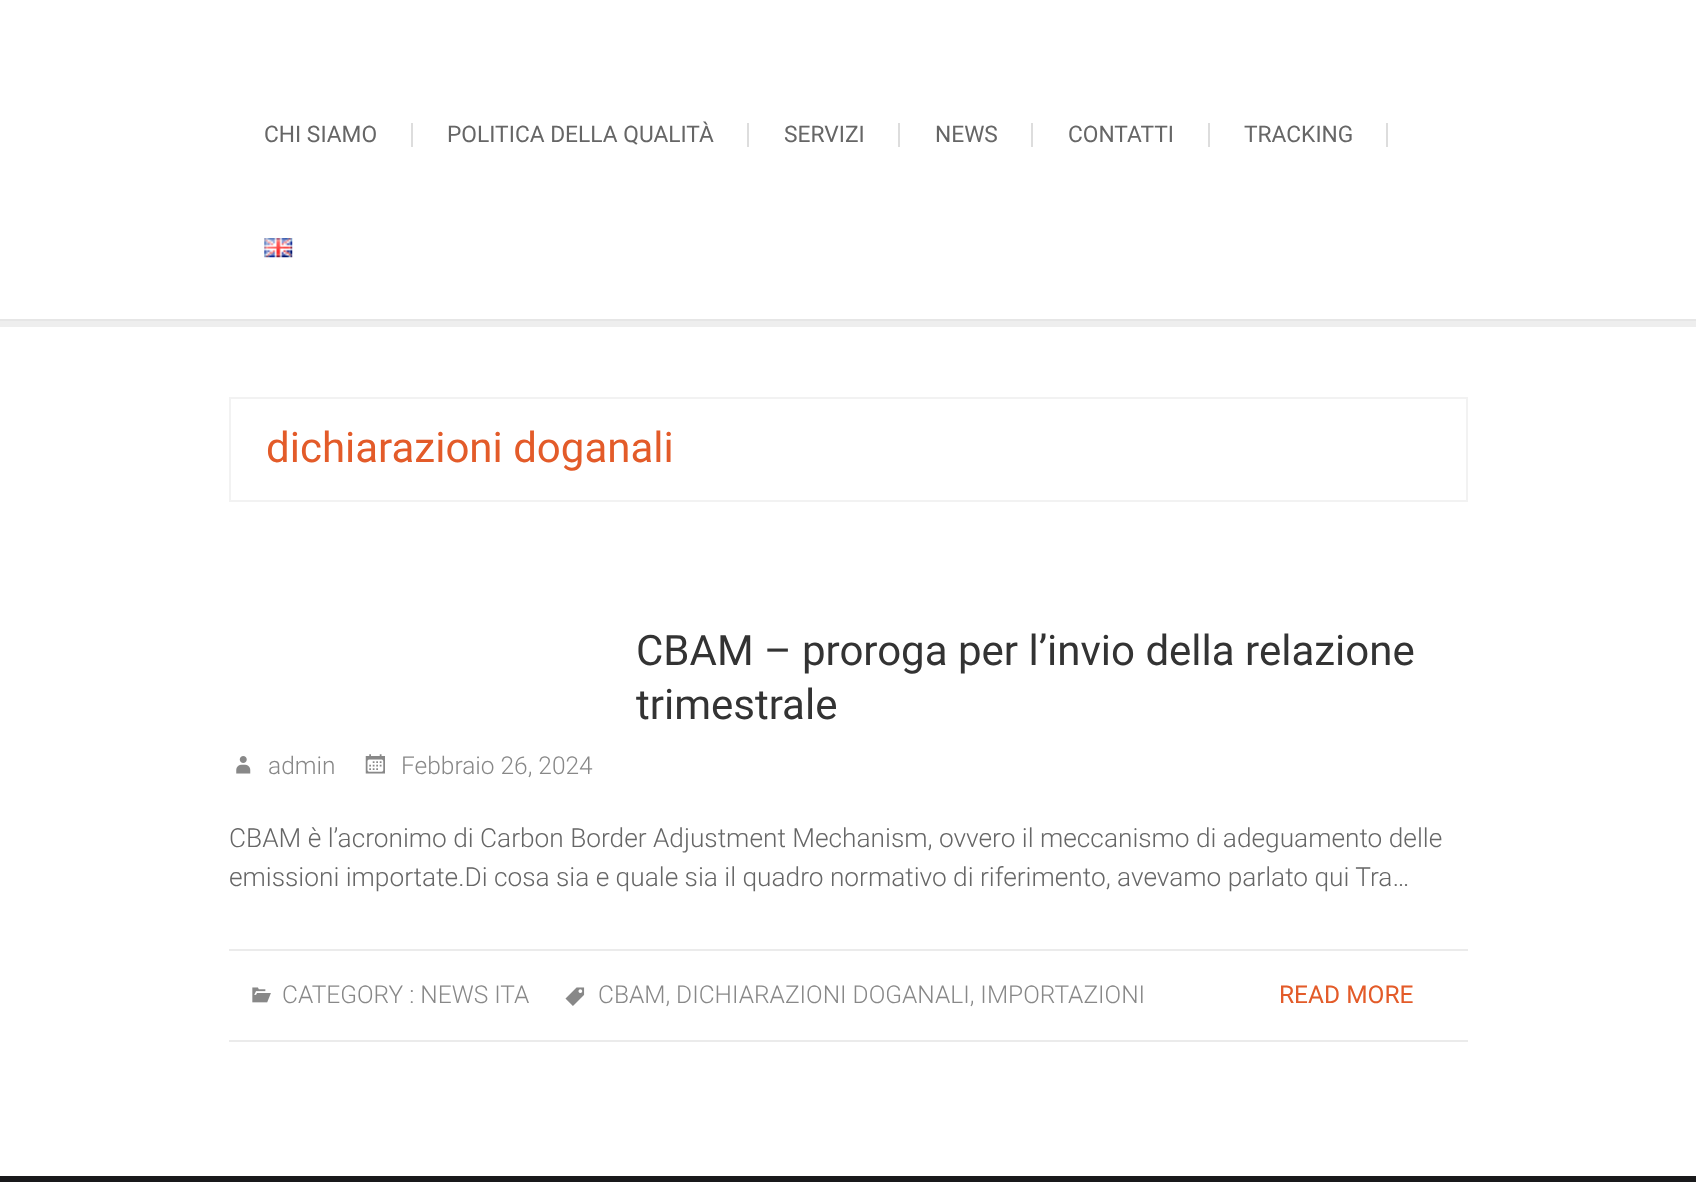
<?xml version="1.0" encoding="UTF-8"?>
<svg xmlns="http://www.w3.org/2000/svg" width="1696" height="1182">
    <defs>
        <clipPath id="clip1"><path d="M 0 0 H 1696 V 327 H 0 Z M 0 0 H 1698 V 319 H 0 Z" clip-rule="evenodd"/></clipPath>
        <filter id="blur1" x="-50%" y="-200%" width="200%" height="500%"><feGaussianBlur stdDeviation="2"/></filter>
    </defs>
    <rect width="100%" height="100%" fill="#FFFFFF"/>
    <g clip-path="url(#clip1)">
        <rect x="0" y="2" width="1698" height="318" fill="#000000" fill-opacity="0.15" filter="url(#blur1)"/>
    </g>
    <rect x="0" y="318" width="1696" height="1" fill="#FFFFFF" fill-opacity="0.9"/>
    <text x="264" y="142" font-family="Roboto" font-size="22.75" fill="#666666">CHI SIAMO</text>
    <rect x="411" y="123" width="2" height="24" fill="#DDDDDD"/>
    <text x="447" y="142" font-family="Roboto" font-size="22.75" fill="#666666">POLITICA DELLA QUALITÀ</text>
    <rect x="747" y="123" width="2" height="24" fill="#DDDDDD"/>
    <text x="784" y="142" font-family="Roboto" font-size="22.75" fill="#666666">SERVIZI</text>
    <rect x="898" y="123" width="2" height="24" fill="#DDDDDD"/>
    <text x="935" y="142" font-family="Roboto" font-size="22.75" fill="#666666">NEWS</text>
    <rect x="1031" y="123" width="2" height="24" fill="#DDDDDD"/>
    <text x="1068" y="142" font-family="Roboto" font-size="22.75" fill="#666666">CONTATTI</text>
    <rect x="1208" y="123" width="2" height="24" fill="#DDDDDD"/>
    <text x="1244" y="142" font-family="Roboto" font-size="22.75" fill="#666666">TRACKING</text>
    <rect x="1386" y="123" width="2" height="24" fill="#DDDDDD"/>
    <image x="264" y="238" width="29" height="20" href="img_01.png"/>
    <rect x="0" y="321" width="1696" height="6" fill="#EEEEEE"/>
    <rect x="0" y="319" width="1696" height="2" fill="#E6E6E6"/>
    <rect x="230" y="398" width="1237" height="103" fill="none" stroke="#F2F2F2" stroke-width="2"/>
    <text x="266" y="462" font-family="Roboto" font-size="42" fill="#E35B29">dichiarazioni doganali</text>
    <text font-family="Roboto" font-size="42" fill="#333333">
        <tspan x="636" y="665">CBAM – proroga per l’invio della relazione</tspan>
        <tspan x="636" y="719">trimestrale</tspan>
    </text>
    <image x="236" y="756" width="15" height="18" href="img_02.png"/>
    <text x="268" y="774" font-family="Roboto" font-size="24.5" font-weight="300" fill="#888888">admin</text>
    <image x="365" y="754" width="20" height="20" href="img_03.png"/>
    <text x="401" y="774" font-family="Roboto" font-size="24.5" font-weight="300" fill="#888888">Febbraio 26, 2024</text>
    <text font-family="Roboto" font-size="26.25" font-weight="300" fill="#666666">
        <tspan x="229" y="847">CBAM è l’acronimo di Carbon Border Adjustment Mechanism, ovvero il meccanismo di adeguamento delle</tspan>
        <tspan x="229" y="886">emissioni importate.Di cosa sia e quale sia il quadro normativo di riferimento, avevamo parlato qui Tra…</tspan>
    </text>
    <rect x="229" y="949" width="1239" height="2" fill="#EBEBEB"/>
    <rect x="229" y="1040" width="1239" height="2" fill="#EBEBEB"/>
    <image x="252" y="987" width="19" height="16" href="img_04.png"/>
    <text x="282" y="1003" font-family="Roboto" font-size="24.5" font-weight="300" fill="#888888">CATEGORY : NEWS ITA</text>
    <image x="565" y="987" width="20" height="19" href="img_05.png"/>
    <text x="598" y="1003" font-family="Roboto" font-size="24.5" font-weight="300" fill="#888888">CBAM, DICHIARAZIONI DOGANALI, IMPORTAZIONI</text>
    <text x="1279" y="1003" font-family="Roboto" font-size="24.5" fill="#E35B29">READ MORE</text>
    <rect x="0" y="1176" width="1696" height="6" fill="#19191B"/>
</svg>
